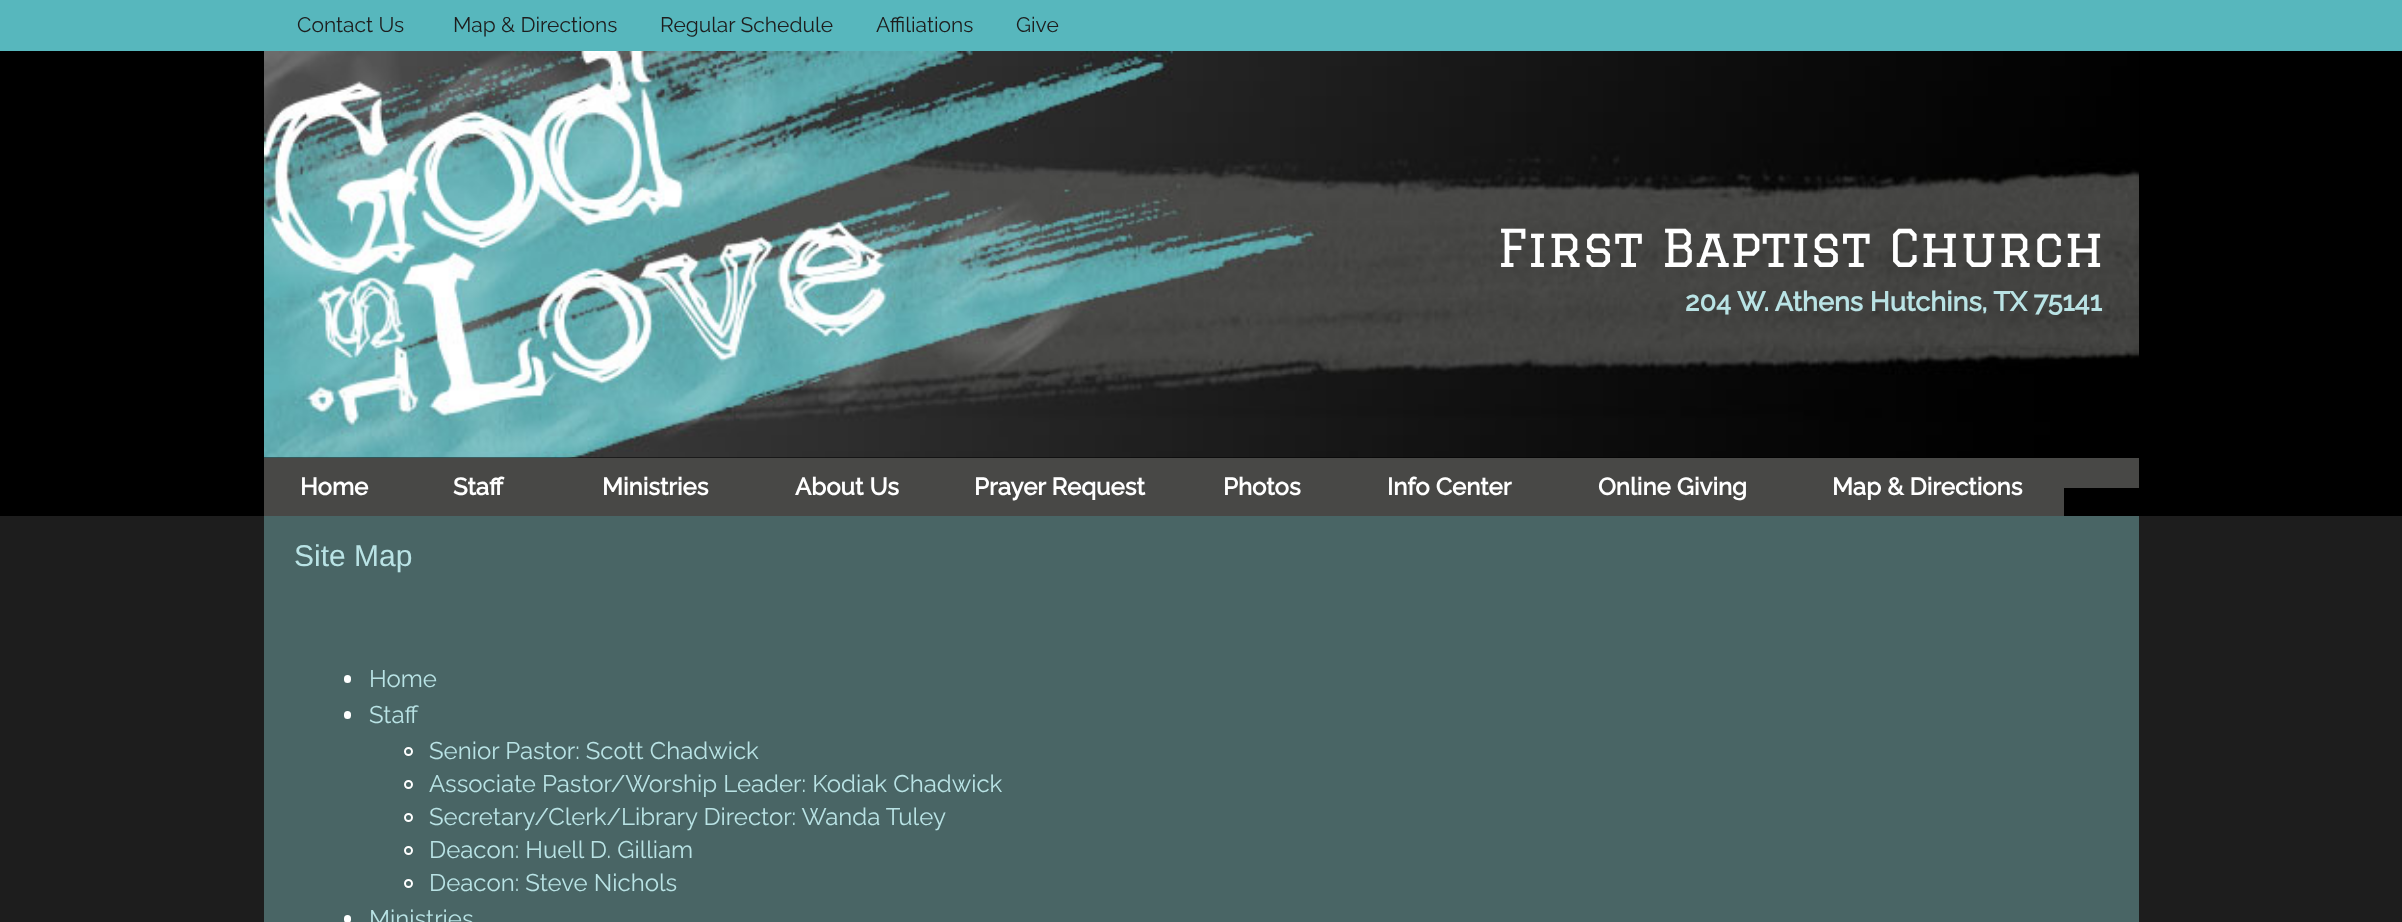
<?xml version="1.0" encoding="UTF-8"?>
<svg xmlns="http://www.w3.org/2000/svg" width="2402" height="922">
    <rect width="100%" height="100%" fill="#000000"/>
    <rect x="0" y="0" width="2402" height="51" fill="#57B7BD"/>
    <text x="297" y="32" font-family="Raleway" font-size="21" fill="#1D1D1D">Contact Us</text>
    <text x="453" y="32" font-family="Raleway" font-size="21" fill="#1D1D1D">Map &amp; Directions</text>
    <text x="660" y="32" font-family="Raleway" font-size="21" fill="#1D1D1D">Regular Schedule</text>
    <text x="876" y="32" font-family="Raleway" font-size="21" fill="#1D1D1D">Affiliations</text>
    <text x="1016" y="32" font-family="Raleway" font-size="21" fill="#1D1D1D">Give</text>
    <image x="264" y="51" width="1875" height="407" href="img_01.png"/>
    <text x="1497" y="267" font-family="Graduate" font-size="51" fill="#FFFFFF">First Baptist Church</text>
    <text x="1685" y="311" font-family="Raleway" font-size="27" font-weight="700" fill="#B9E3E5">204 W. Athens Hutchins, TX 75141</text>
    <rect x="264" y="458" width="1800" height="58" fill="#484846"/>
    <text x="300" y="495" font-family="Raleway" font-size="24" font-weight="700" fill="#FFFFFF">Home</text>
    <text x="453" y="495" font-family="Raleway" font-size="24" font-weight="700" fill="#FFFFFF">Staff</text>
    <text x="602" y="495" font-family="Raleway" font-size="24" font-weight="700" fill="#FFFFFF">Ministries</text>
    <text x="795" y="495" font-family="Raleway" font-size="24" font-weight="700" fill="#FFFFFF">About Us</text>
    <text x="974" y="495" font-family="Raleway" font-size="24" font-weight="700" fill="#FFFFFF">Prayer Request</text>
    <text x="1223" y="495" font-family="Raleway" font-size="24" font-weight="700" fill="#FFFFFF">Photos</text>
    <text x="1387" y="495" font-family="Raleway" font-size="24" font-weight="700" fill="#FFFFFF">Info Center</text>
    <text x="1598" y="495" font-family="Raleway" font-size="24" font-weight="700" fill="#FFFFFF">Online Giving</text>
    <text x="1832" y="495" font-family="Raleway" font-size="24" font-weight="700" fill="#FFFFFF">Map &amp; Directions</text>
    <rect x="2064" y="458" width="75" height="30" fill="#484846"/>
    <rect x="0" y="516" width="2402" height="406" fill="#1D1D1D"/>
    <rect x="264" y="516" width="1875" height="406" fill="#496565"/>
    <text x="294" y="566" font-family="Liberation Sans" font-size="30" fill="#B9E3E5">Site Map</text>
    <rect x="344" y="675" width="7" height="8" rx="3.5" fill="#FFFFFF"/>
    <text x="369" y="687" font-family="Raleway" font-size="24" fill="#B9E3E5">Home</text>
    <rect x="344" y="711" width="7" height="8" rx="3.5" fill="#FFFFFF"/>
    <text x="369" y="723" font-family="Raleway" font-size="24" fill="#B9E3E5">Staff</text>
    <circle cx="408.5" cy="751.5" r="3.5" fill="none" stroke="#FFFFFF" stroke-width="2"/>
    <text x="429" y="759" font-family="Raleway" font-size="24" fill="#B9E3E5">Senior Pastor: Scott Chadwick</text>
    <circle cx="408.5" cy="784.5" r="3.5" fill="none" stroke="#FFFFFF" stroke-width="2"/>
    <text x="429" y="792" font-family="Raleway" font-size="24" fill="#B9E3E5">Associate Pastor/Worship Leader: Kodiak Chadwick</text>
    <circle cx="408.5" cy="817.5" r="3.5" fill="none" stroke="#FFFFFF" stroke-width="2"/>
    <text x="429" y="825" font-family="Raleway" font-size="24" fill="#B9E3E5">Secretary/Clerk/Library Director: Wanda Tuley</text>
    <circle cx="408.5" cy="850.5" r="3.5" fill="none" stroke="#FFFFFF" stroke-width="2"/>
    <text x="429" y="858" font-family="Raleway" font-size="24" fill="#B9E3E5">Deacon: Huell D. Gilliam</text>
    <circle cx="408.5" cy="883.5" r="3.5" fill="none" stroke="#FFFFFF" stroke-width="2"/>
    <text x="429" y="891" font-family="Raleway" font-size="24" fill="#B9E3E5">Deacon: Steve Nichols</text>
    <rect x="344" y="915" width="7" height="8" rx="3.5" fill="#FFFFFF"/>
    <text x="369" y="927" font-family="Raleway" font-size="24" fill="#B9E3E5">Ministries</text>
</svg>
